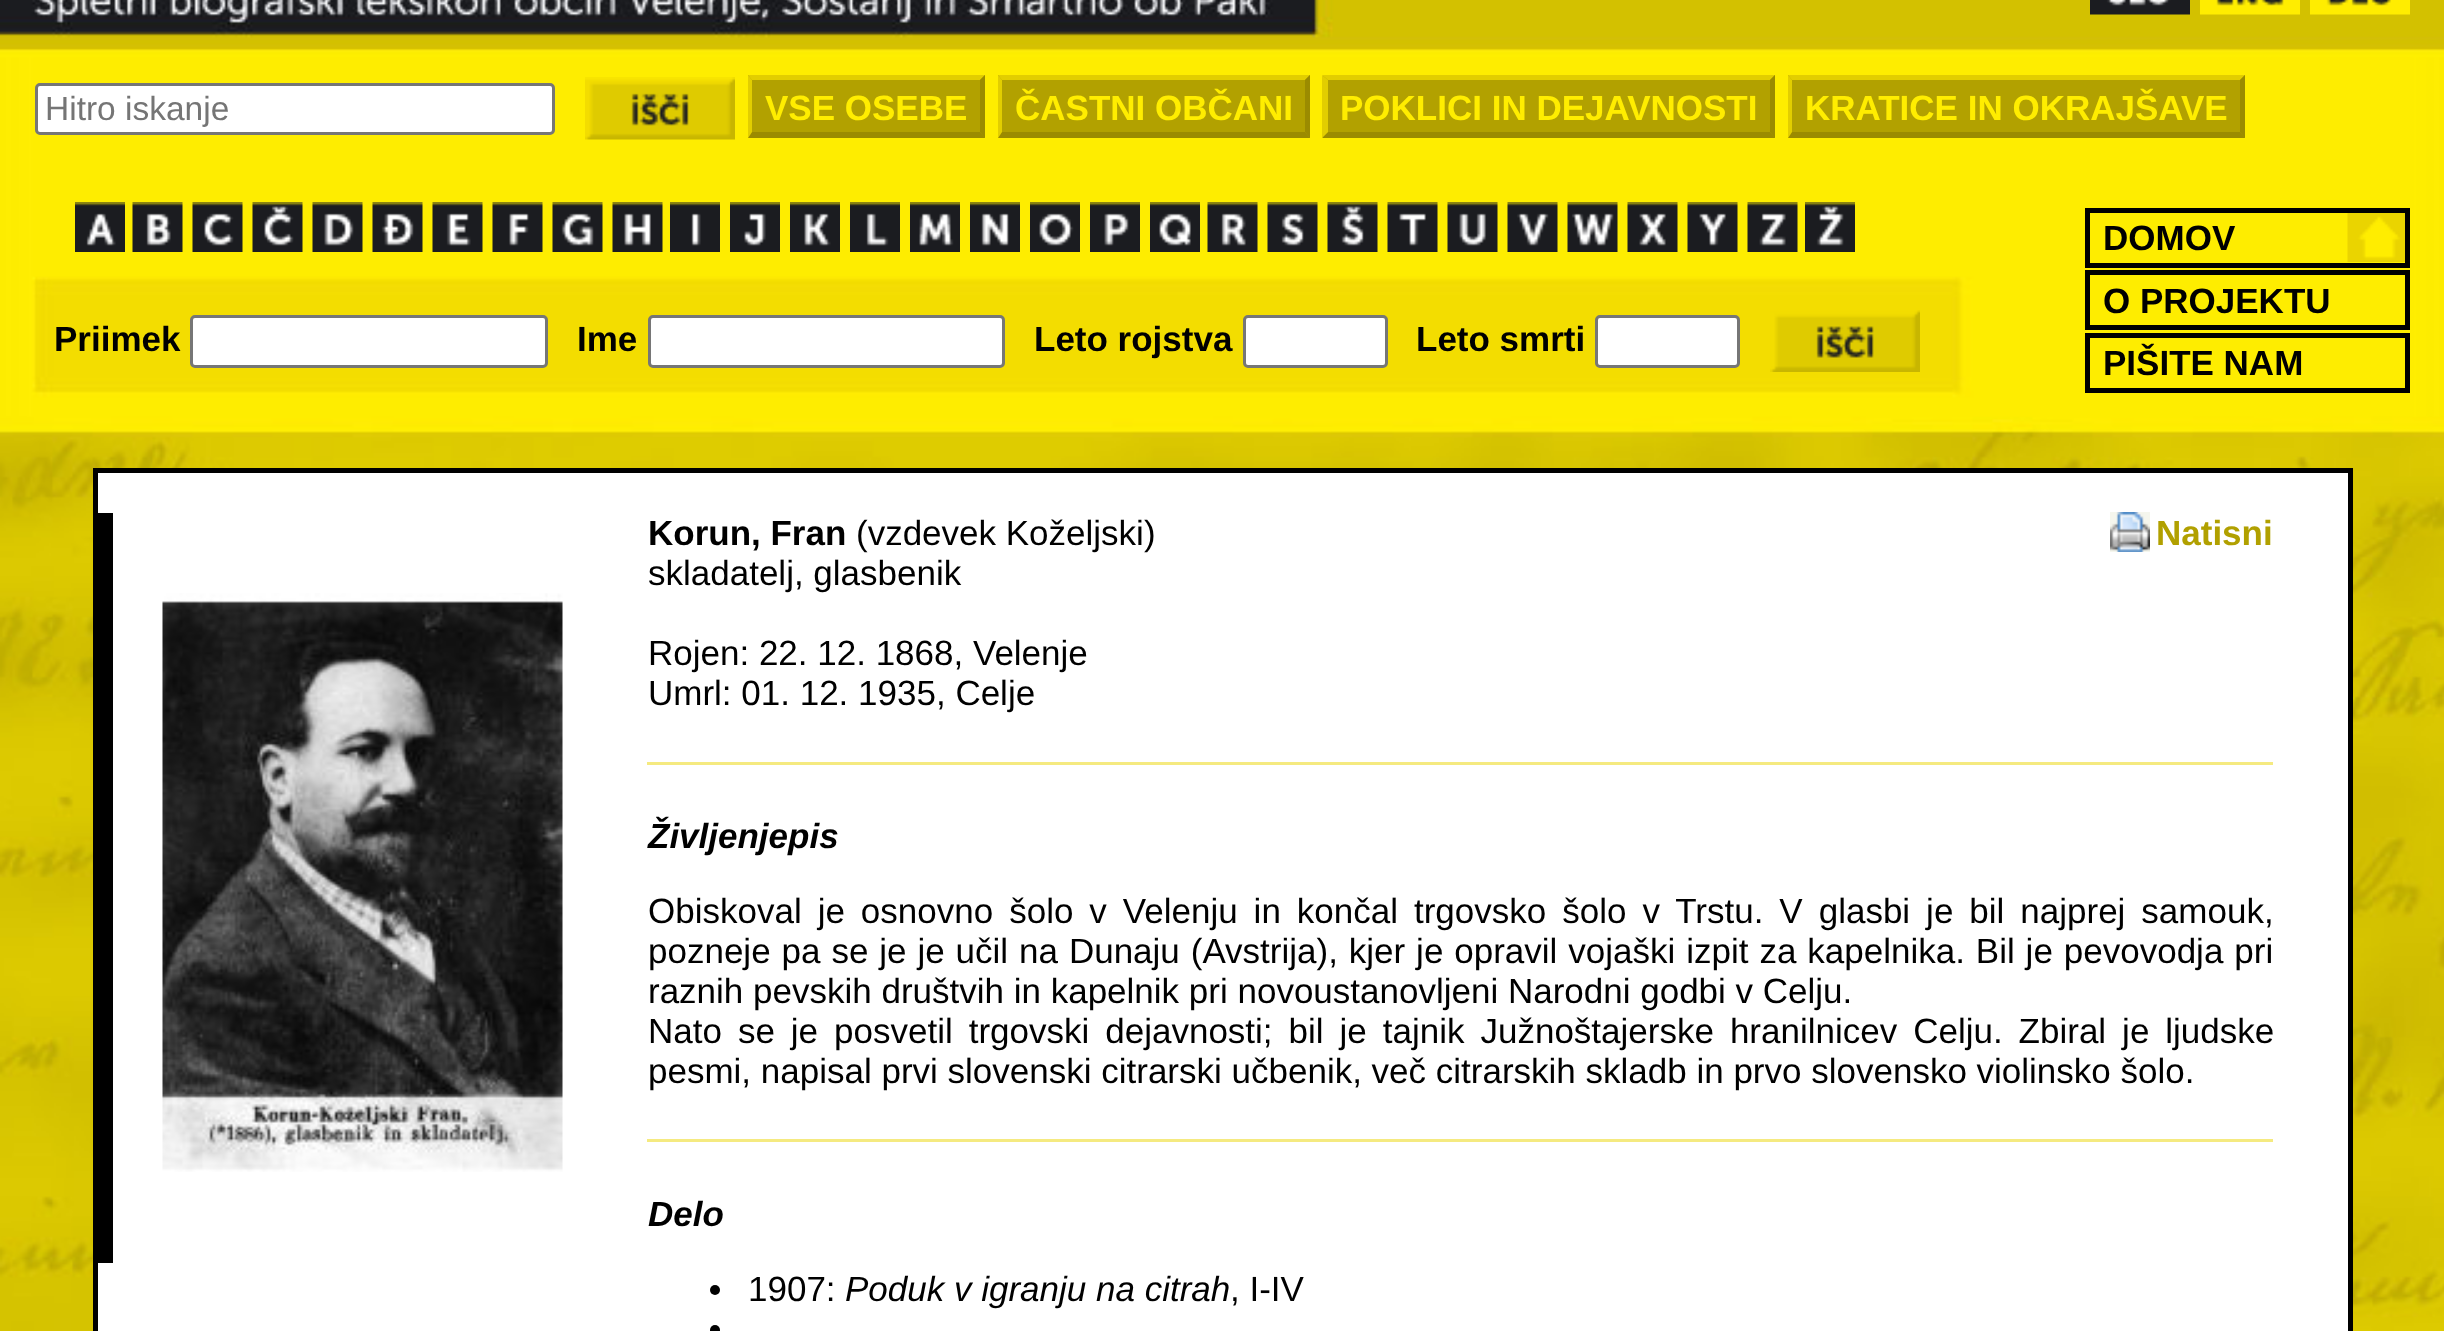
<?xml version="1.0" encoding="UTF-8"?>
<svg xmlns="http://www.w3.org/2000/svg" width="2444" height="1331">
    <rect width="100%" height="100%" fill="#FFFFFF"/>
    <image x="0" y="0" width="2444" height="1331" href="img_01.png"/>
    <image x="2090" y="0" width="100" height="15" href="img_02.png"/>
    <image x="2200" y="0" width="100" height="15" href="img_03.png"/>
    <image x="2310" y="0" width="100" height="15" href="img_04.png"/>
    <rect x="36.5" y="84.5" width="517" height="49" rx="3.5" fill="#FFFFFF" stroke="#767676" stroke-width="3"/>
    <text x="45" y="120" font-family="Liberation Sans" font-size="33.5" fill="#757575">Hitro iskanje</text>
    <image x="585" y="77" width="150" height="63" href="img_05.png"/>
    <rect x="748" y="75" width="237" height="63" fill="#B2A100"/>
    <text x="765" y="120" font-family="Liberation Sans" font-size="35" font-weight="700" fill="#FFED00">VSE OSEBE</text>
    <path d="M 748 75 H 985 L 980 80 H 752 Z" fill="#E2CE00"/>
    <path d="M 985 75 V 138 L 980 132 V 80 Z" fill="#9B8B00"/>
    <path d="M 985 138 H 748 L 752 132 H 980 Z" fill="#9B8B00"/>
    <path d="M 748 138 V 75 L 752 80 V 132 Z" fill="#E2CE00"/>
    <rect x="998" y="75" width="312" height="63" fill="#B2A100"/>
    <text x="1015" y="120" font-family="Liberation Sans" font-size="35" font-weight="700" fill="#FFED00">ČASTNI OBČANI</text>
    <path d="M 998 75 H 1310 L 1305 80 H 1002 Z" fill="#E2CE00"/>
    <path d="M 1310 75 V 138 L 1305 132 V 80 Z" fill="#9B8B00"/>
    <path d="M 1310 138 H 998 L 1002 132 H 1305 Z" fill="#9B8B00"/>
    <path d="M 998 138 V 75 L 1002 80 V 132 Z" fill="#E2CE00"/>
    <rect x="1323" y="75" width="452" height="63" fill="#B2A100"/>
    <text x="1340" y="120" font-family="Liberation Sans" font-size="35" font-weight="700" fill="#FFED00">POKLICI IN DEJAVNOSTI</text>
    <path d="M 1322 75 H 1775 L 1770 80 H 1328 Z" fill="#E2CE00"/>
    <path d="M 1775 75 V 138 L 1770 132 V 80 Z" fill="#9B8B00"/>
    <path d="M 1775 138 H 1322 L 1328 132 H 1770 Z" fill="#9B8B00"/>
    <path d="M 1322 138 V 75 L 1328 80 V 132 Z" fill="#E2CE00"/>
    <rect x="1788" y="75" width="457" height="63" fill="#B2A100"/>
    <text x="1805" y="120" font-family="Liberation Sans" font-size="35" font-weight="700" fill="#FFED00">KRATICE IN OKRAJŠAVE</text>
    <path d="M 1788 75 H 2245 L 2240 80 H 1792 Z" fill="#E2CE00"/>
    <path d="M 2245 75 V 138 L 2240 132 V 80 Z" fill="#9B8B00"/>
    <path d="M 2245 138 H 1788 L 1792 132 H 2240 Z" fill="#9B8B00"/>
    <path d="M 1788 138 V 75 L 1792 80 V 132 Z" fill="#E2CE00"/>
    <image x="75" y="202" width="50" height="50" href="img_06.png"/>
    <image x="132" y="202" width="51" height="50" href="img_07.png"/>
    <image x="192" y="202" width="51" height="50" href="img_08.png"/>
    <image x="252" y="202" width="51" height="50" href="img_09.png"/>
    <image x="312" y="202" width="51" height="50" href="img_10.png"/>
    <image x="372" y="202" width="51" height="50" href="img_11.png"/>
    <image x="432" y="202" width="51" height="50" href="img_12.png"/>
    <image x="492" y="202" width="51" height="50" href="img_13.png"/>
    <image x="552" y="202" width="51" height="50" href="img_14.png"/>
    <image x="612" y="202" width="51" height="50" href="img_15.png"/>
    <image x="670" y="202" width="50" height="50" href="img_16.png"/>
    <image x="730" y="202" width="50" height="50" href="img_17.png"/>
    <image x="790" y="202" width="50" height="50" href="img_18.png"/>
    <image x="850" y="202" width="50" height="50" href="img_19.png"/>
    <image x="910" y="202" width="50" height="50" href="img_20.png"/>
    <image x="970" y="202" width="50" height="50" href="img_21.png"/>
    <image x="1030" y="202" width="50" height="50" href="img_22.png"/>
    <image x="1090" y="202" width="50" height="50" href="img_23.png"/>
    <image x="1150" y="202" width="50" height="50" href="img_24.png"/>
    <image x="1207" y="202" width="51" height="50" href="img_25.png"/>
    <image x="1267" y="202" width="51" height="50" href="img_26.png"/>
    <image x="1327" y="202" width="51" height="50" href="img_27.png"/>
    <image x="1387" y="202" width="51" height="50" href="img_28.png"/>
    <image x="1447" y="202" width="51" height="50" href="img_29.png"/>
    <image x="1507" y="202" width="51" height="50" href="img_30.png"/>
    <image x="1567" y="202" width="51" height="50" href="img_31.png"/>
    <image x="1627" y="202" width="51" height="50" href="img_32.png"/>
    <image x="1687" y="202" width="51" height="50" href="img_33.png"/>
    <image x="1747" y="202" width="51" height="50" href="img_34.png"/>
    <image x="1805" y="202" width="50" height="50" href="img_35.png"/>
    <image x="2347" y="213" width="58" height="49" href="img_36.png"/>
    <rect x="2087.5" y="210.5" width="320" height="55" fill="none" stroke="#000000" stroke-width="5"/>
    <text x="2103" y="250" font-family="Liberation Sans" font-size="35" font-weight="700" fill="#000000">DOMOV</text>
    <rect x="2087.5" y="272.5" width="320" height="55" fill="none" stroke="#000000" stroke-width="5"/>
    <text x="2103" y="313" font-family="Liberation Sans" font-size="35" font-weight="700" fill="#000000">O PROJEKTU</text>
    <rect x="2087.5" y="335.5" width="320" height="55" fill="none" stroke="#000000" stroke-width="5"/>
    <text x="2103" y="375" font-family="Liberation Sans" font-size="35" font-weight="700" fill="#000000">PIŠITE NAM</text>
    <text x="54" y="351" font-family="Liberation Sans" font-size="35" font-weight="700" fill="#000000">Priimek</text>
    <rect x="191.5" y="316.5" width="355" height="50" rx="3.5" fill="#FFFFFF" stroke="#767676" stroke-width="3"/>
    <text x="577" y="351" font-family="Liberation Sans" font-size="35" font-weight="700" fill="#000000">Ime</text>
    <rect x="649.5" y="316.5" width="354" height="50" rx="3.5" fill="#FFFFFF" stroke="#767676" stroke-width="3"/>
    <text x="1034" y="351" font-family="Liberation Sans" font-size="35" font-weight="700" fill="#000000">Leto rojstva</text>
    <rect x="1244.5" y="316.5" width="142" height="50" rx="3.5" fill="#FFFFFF" stroke="#767676" stroke-width="3"/>
    <text x="1416" y="351" font-family="Liberation Sans" font-size="35" font-weight="700" fill="#000000">Leto smrti</text>
    <rect x="1596.5" y="316.5" width="142" height="50" rx="3.5" fill="#FFFFFF" stroke="#767676" stroke-width="3"/>
    <image x="1770" y="310" width="150" height="62" href="img_37.png"/>
    <rect x="95.5" y="470.5" width="2255" height="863" fill="#FFFFFF" stroke="#000000" stroke-width="5"/>
    <rect x="98" y="513" width="15" height="750" fill="#000000"/>
    <image x="162" y="593" width="401" height="579" href="img_38.png"/>
    <text x="648" y="545" font-family="Liberation Sans" font-size="35" font-weight="700" fill="#000000">Korun, Fran</text>
    <text x="856" y="545" font-family="Liberation Sans" font-size="35" fill="#000000">(vzdevek Koželjski)</text>
    <image x="2110" y="512" width="40" height="40" href="img_39.png"/>
    <text x="2156" y="545" font-family="Liberation Sans" font-size="35" font-weight="700" fill="#B1A000">Natisni</text>
    <text x="648" y="585" font-family="Liberation Sans" font-size="35" fill="#000000">skladatelj, glasbenik</text>
    <text font-family="Liberation Sans" font-size="35" fill="#000000">
        <tspan x="648" y="665">Rojen: 22. 12. 1868, Velenje</tspan>
        <tspan x="648" y="705">Umrl: 01. 12. 1935, Celje</tspan>
    </text>
    <rect x="647" y="762" width="1626" height="3" fill="#F5EA80"/>
    <text x="648" y="848" font-family="Liberation Sans" font-size="35" font-weight="700" font-style="italic" fill="#000000">Življenjepis</text>
    <text font-family="Liberation Sans" font-size="35" fill="#000000">
        <tspan x="648" y="923" word-spacing="6.25">Obiskoval je osnovno šolo v Velenju in končal trgovsko šolo v Trstu. V glasbi je bil najprej samouk,</tspan>
        <tspan x="648" y="963" word-spacing="1.2">pozneje pa se je je učil na Dunaju (Avstrija), kjer je opravil vojaški izpit za kapelnika. Bil je pevovodja pri</tspan>
        <tspan x="648" y="1003">raznih pevskih društvih in kapelnik pri novoustanovljeni Narodni godbi v Celju.</tspan>
        <tspan x="648" y="1043" word-spacing="6.25">Nato se je posvetil trgovski dejavnosti; bil je tajnik Južnoštajerske hranilnicev Celju. Zbiral je ljudske</tspan>
        <tspan x="648" y="1083">pesmi, napisal prvi slovenski citrarski učbenik, več citrarskih skladb in prvo slovensko violinsko šolo.</tspan>
    </text>
    <rect x="647" y="1139" width="1626" height="3" fill="#F5EA80"/>
    <text x="648" y="1226" font-family="Liberation Sans" font-size="35" font-weight="700" font-style="italic" fill="#000000">Delo</text>
    <circle cx="715" cy="1290" r="5" fill="#000000"/>
    <text x="748" y="1301" font-family="Liberation Sans" font-size="35" fill="#000000">1907:</text>
    <text x="845" y="1301" font-family="Liberation Sans" font-size="35" font-style="italic" fill="#000000">Poduk v igranju na citrah</text>
    <text x="1230" y="1301" font-family="Liberation Sans" font-size="35" fill="#000000">, I-IV</text>
    <circle cx="715" cy="1330" r="5" fill="#000000"/>
</svg>
